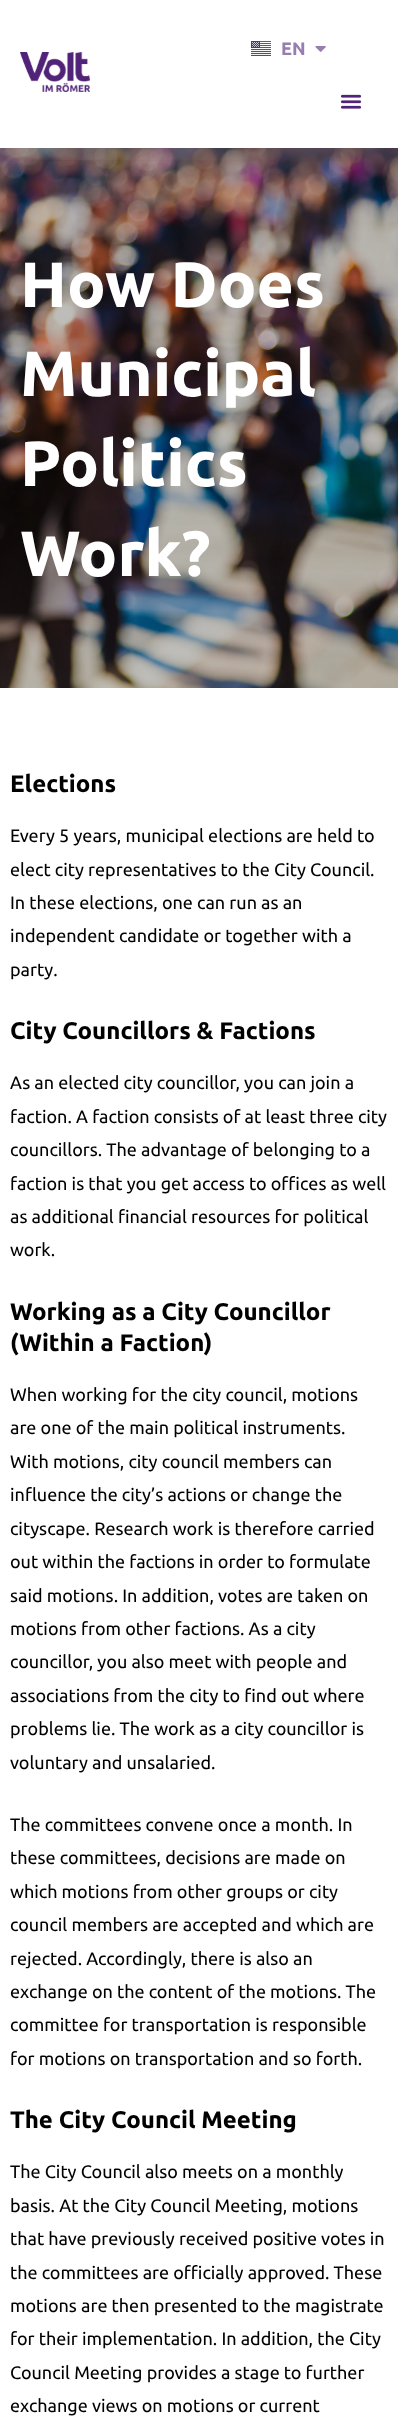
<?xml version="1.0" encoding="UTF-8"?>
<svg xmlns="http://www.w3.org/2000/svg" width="398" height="2430">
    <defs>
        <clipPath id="clip1"><rect x="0" y="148" width="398" height="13"/></clipPath>
        <filter id="blur1" x="-50%" y="-200%" width="200%" height="500%"><feGaussianBlur stdDeviation="12"/></filter>
    </defs>
    <rect width="100%" height="100%" fill="#FFFFFF"/>
    <image x="0" y="148" width="398" height="540" href="img_05.png"/>
    <g clip-path="url(#clip1)">
        <rect x="0" y="0" width="398" height="148" fill="#000000" fill-opacity="0.15" filter="url(#blur1)"/>
    </g>
    <image x="251" y="41" width="20" height="15" href="img_01.png"/>
    <text x="281" y="55" font-family="Ubuntu" font-size="18" font-weight="700" fill="#987DB0">EN</text>
    <image x="315" y="46" width="11" height="6" href="img_02.png"/>
    <image x="340" y="94" width="22" height="15" href="img_03.png"/>
    <image x="20" y="52" width="70" height="40" href="img_04.png"/>
    <text font-family="Ubuntu" font-size="64" font-weight="700" fill="#FFFFFF">
        <tspan x="20" y="307">How Does</tspan>
        <tspan x="20" y="396">Municipal</tspan>
        <tspan x="20" y="486">Politics</tspan>
        <tspan x="20" y="576">Work?</tspan>
    </text>
    <text x="10" y="792" font-family="Ubuntu" font-size="24" font-weight="700" fill="#000000">Elections</text>
    <text font-family="Ubuntu" font-size="18" fill="#000000">
        <tspan x="10" y="842">Every 5 years, municipal elections are held to</tspan>
        <tspan x="10" y="876">elect city representatives to the City Council.</tspan>
        <tspan x="10" y="909">In these elections, one can run as an</tspan>
        <tspan x="10" y="942">independent candidate or together with a</tspan>
        <tspan x="10" y="976">party.</tspan>
    </text>
    <text x="10" y="1039" font-family="Ubuntu" font-size="24" font-weight="700" fill="#000000">City Councillors &amp; Factions</text>
    <text font-family="Ubuntu" font-size="18" fill="#000000">
        <tspan x="10" y="1089">As an elected city councillor, you can join a</tspan>
        <tspan x="10" y="1123">faction. A faction consists of at least three city</tspan>
        <tspan x="10" y="1156">councillors. The advantage of belonging to a</tspan>
        <tspan x="10" y="1190">faction is that you get access to offices as well</tspan>
        <tspan x="10" y="1223">as additional financial resources for political</tspan>
        <tspan x="10" y="1256">work.</tspan>
    </text>
    <text font-family="Ubuntu" font-size="24" font-weight="700" fill="#000000">
        <tspan x="10" y="1320">Working as a City Councillor</tspan>
        <tspan x="10" y="1351">(Within a Faction)</tspan>
    </text>
    <text font-family="Ubuntu" font-size="18" fill="#000000">
        <tspan x="10" y="1401">When working for the city council, motions</tspan>
        <tspan x="10" y="1434">are one of the main political instruments.</tspan>
        <tspan x="10" y="1468">With motions, city council members can</tspan>
        <tspan x="10" y="1501">influence the city’s actions or change the</tspan>
        <tspan x="10" y="1535">cityscape. Research work is therefore carried</tspan>
        <tspan x="10" y="1568">out within the factions in order to formulate</tspan>
        <tspan x="10" y="1602">said motions. In addition, votes are taken on</tspan>
        <tspan x="10" y="1635">motions from other factions. As a city</tspan>
        <tspan x="10" y="1668">councillor, you also meet with people and</tspan>
        <tspan x="10" y="1702">associations from the city to find out where</tspan>
        <tspan x="10" y="1735">problems lie. The work as a city councillor is</tspan>
        <tspan x="10" y="1769">voluntary and unsalaried.</tspan>
    </text>
    <text font-family="Ubuntu" font-size="18" fill="#000000">
        <tspan x="10" y="1831">The committees convene once a month. In</tspan>
        <tspan x="10" y="1864">these committees, decisions are made on</tspan>
        <tspan x="10" y="1898">which motions from other groups or city</tspan>
        <tspan x="10" y="1931">council members are accepted and which are</tspan>
        <tspan x="10" y="1965">rejected. Accordingly, there is also an</tspan>
        <tspan x="10" y="1998">exchange on the content of the motions. The</tspan>
        <tspan x="10" y="2031">committee for transportation is responsible</tspan>
        <tspan x="10" y="2065">for motions on transportation and so forth.</tspan>
    </text>
    <text x="10" y="2128" font-family="Ubuntu" font-size="24" font-weight="700" fill="#000000">The City Council Meeting</text>
    <text font-family="Ubuntu" font-size="18" fill="#000000">
        <tspan x="10" y="2178">The City Council also meets on a monthly</tspan>
        <tspan x="10" y="2212">basis. At the City Council Meeting, motions</tspan>
        <tspan x="10" y="2245">that have previously received positive votes in</tspan>
        <tspan x="10" y="2279">the committees are officially approved. These</tspan>
        <tspan x="10" y="2312">motions are then presented to the magistrate</tspan>
        <tspan x="10" y="2345">for their implementation. In addition, the City</tspan>
        <tspan x="10" y="2379">Council Meeting provides a stage to further</tspan>
        <tspan x="10" y="2412">exchange views on motions or current</tspan>
    </text>
</svg>
